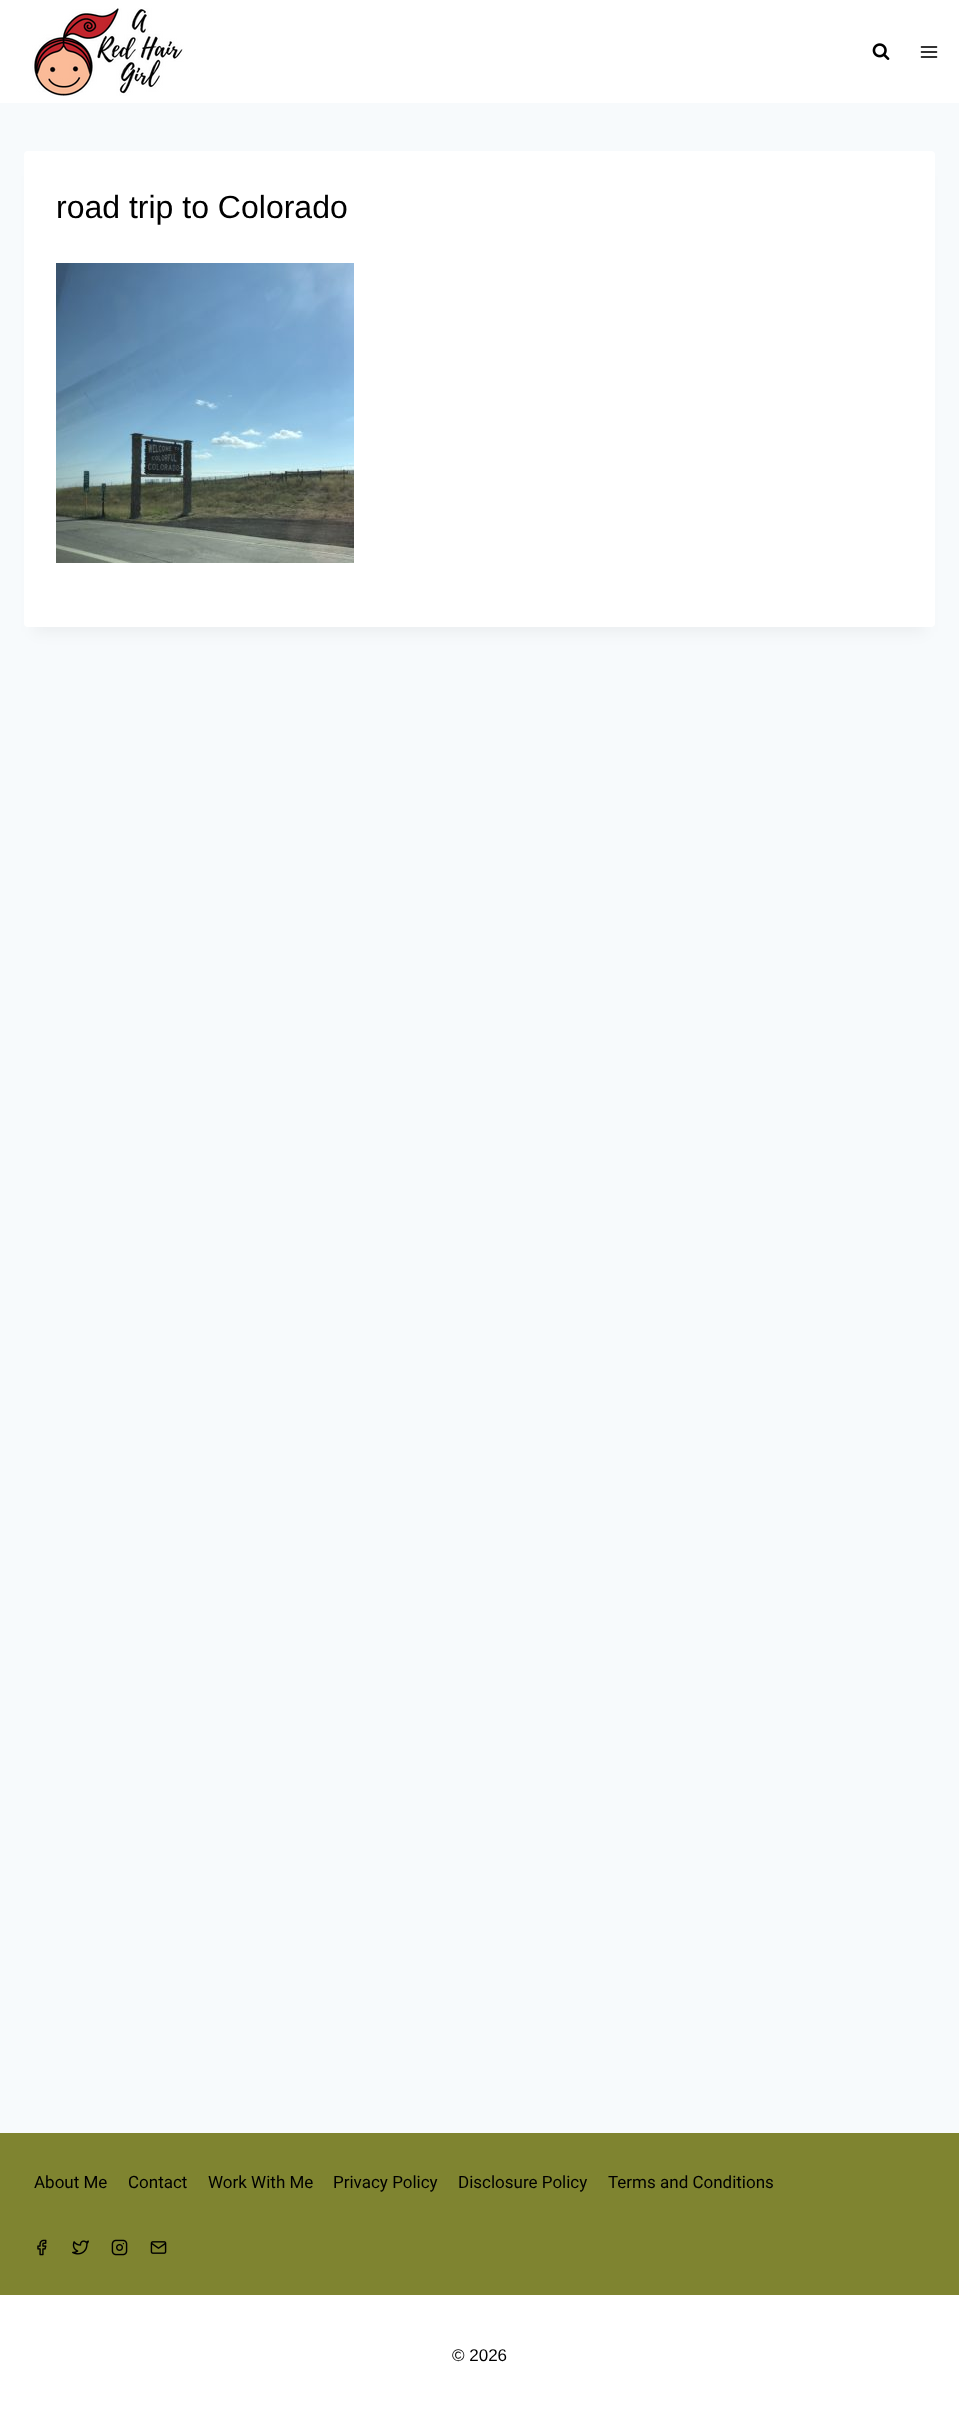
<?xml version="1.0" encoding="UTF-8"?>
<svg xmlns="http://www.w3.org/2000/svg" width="959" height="2416">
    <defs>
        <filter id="blur1" x="-50%" y="-200%" width="200%" height="500%"><feGaussianBlur stdDeviation="7.5"/></filter>
    </defs>
    <rect width="100%" height="100%" fill="#F7FAFC"/>
    <rect x="0" y="0" width="959" height="103" fill="#FFFFFF"/>
    <image x="32" y="8" width="152" height="88" href="img_01.png"/>
    <image x="872" y="43" width="18" height="17" href="img_02.png"/>
    <image x="920" y="46" width="18" height="12" href="img_03.png"/>
    <rect x="34" y="176" width="891" height="456" fill="#000000" fill-opacity="0.05" filter="url(#blur1)"/>
    <rect x="24" y="151" width="911" height="476" rx="4" fill="#FFFFFF"/>
    <text x="56" y="218" font-family="Liberation Sans" font-size="32" fill="#000000">road trip to Colorado</text>
    <image x="56" y="263" width="298" height="300" href="img_04.png"/>
    <rect x="0" y="2133" width="959" height="162" fill="#7F8430"/>
    <text x="34" y="2188" font-family="Roboto" font-size="17" fill="#000000">About Me</text>
    <text x="128" y="2188" font-family="Roboto" font-size="17" fill="#000000">Contact</text>
    <text x="208" y="2188" font-family="Roboto" font-size="17" fill="#000000">Work With Me</text>
    <text x="333" y="2188" font-family="Roboto" font-size="17" fill="#000000">Privacy Policy</text>
    <text x="458" y="2188" font-family="Roboto" font-size="17" fill="#000000">Disclosure Policy</text>
    <text x="608" y="2188" font-family="Roboto" font-size="17" fill="#000000">Terms and Conditions</text>
    <image x="37" y="2239" width="10" height="17" href="img_05.png"/>
    <image x="72" y="2240" width="17" height="15" href="img_06.png"/>
    <image x="111" y="2239" width="17" height="17" href="img_07.png"/>
    <image x="150" y="2241" width="17" height="13" href="img_08.png"/>
    <rect x="0" y="2295" width="959" height="121" fill="#FFFFFF"/>
    <text x="452" y="2361" font-family="Liberation Sans" font-size="17" fill="#000000">© 2026</text>
</svg>
